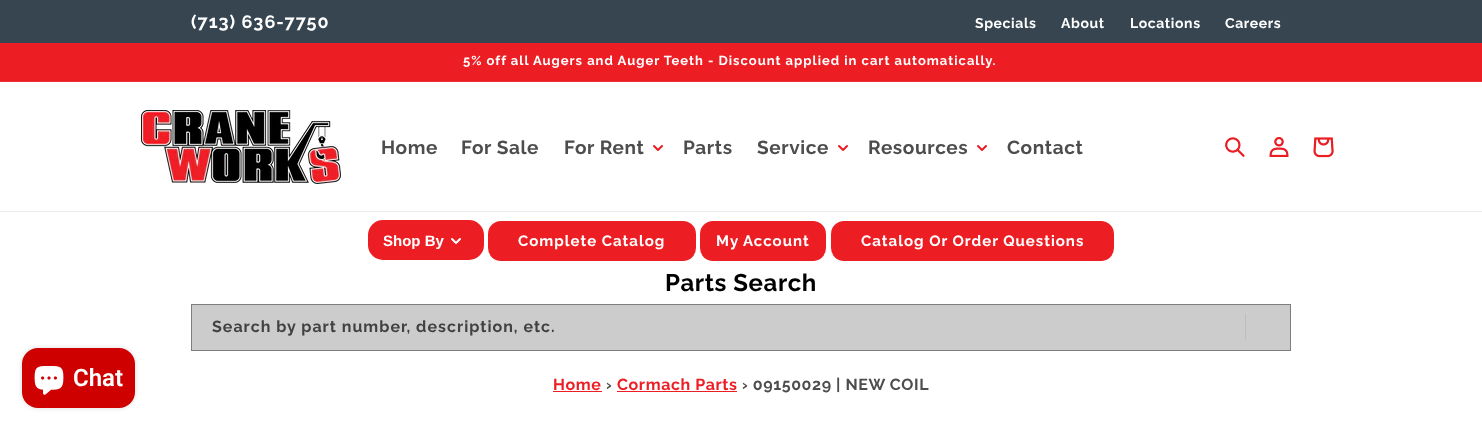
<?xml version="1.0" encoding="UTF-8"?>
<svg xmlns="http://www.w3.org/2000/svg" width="1482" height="429">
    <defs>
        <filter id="blur1" x="-50%" y="-200%" width="200%" height="500%"><feGaussianBlur stdDeviation="2.5"/></filter>
    </defs>
    <rect width="100%" height="100%" fill="#FFFFFF"/>
    <rect x="0" y="0" width="1482" height="43" fill="#36454F"/>
    <text x="191" y="28" font-family="Raleway" font-size="18" font-weight="700" letter-spacing="1" fill="#FFFFFF">(713) 636-7750</text>
    <text x="975" y="28" font-family="Raleway" font-size="14" font-weight="700" letter-spacing="0.6" fill="#FFFFFF">Specials</text>
    <text x="1061" y="28" font-family="Raleway" font-size="14" font-weight="700" letter-spacing="0.6" fill="#FFFFFF">About</text>
    <text x="1130" y="28" font-family="Raleway" font-size="14" font-weight="700" letter-spacing="0.6" fill="#FFFFFF">Locations</text>
    <text x="1225" y="28" font-family="Raleway" font-size="14" font-weight="700" letter-spacing="0.6" fill="#FFFFFF">Careers</text>
    <rect x="0" y="43" width="1482" height="38" fill="#ED1D24"/>
    <rect x="0" y="81" width="1482" height="1" fill="#EE2F36"/>
    <text x="463" y="65" font-family="Raleway" font-size="13" font-weight="700" letter-spacing="1" fill="#FFFFFF">5% off all Augers and Auger Teeth - Discount applied in cart automatically.</text>
    <rect x="0" y="211" width="1482" height="1" fill="#ECECEC"/>
    <image x="141" y="110" width="200" height="74" href="img_01.png"/>
    <text x="381" y="154" font-family="Raleway" font-size="19" font-weight="700" letter-spacing="0.6" fill="#4D4D4D">Home</text>
    <text x="461" y="154" font-family="Raleway" font-size="19" font-weight="700" letter-spacing="0.6" fill="#4D4D4D">For Sale</text>
    <text x="564" y="154" font-family="Raleway" font-size="19" font-weight="700" letter-spacing="0.6" fill="#4D4D4D">For Rent</text>
    <image x="653" y="145" width="10" height="6" href="img_02.png"/>
    <text x="683" y="154" font-family="Raleway" font-size="19" font-weight="700" letter-spacing="0.6" fill="#4D4D4D">Parts</text>
    <text x="757" y="154" font-family="Raleway" font-size="19" font-weight="700" letter-spacing="0.6" fill="#4D4D4D">Service</text>
    <image x="838" y="145" width="10" height="6" href="img_02.png"/>
    <text x="868" y="154" font-family="Raleway" font-size="19" font-weight="700" letter-spacing="0.6" fill="#4D4D4D">Resources</text>
    <image x="977" y="145" width="10" height="6" href="img_02.png"/>
    <text x="1007" y="154" font-family="Raleway" font-size="19" font-weight="700" letter-spacing="0.6" fill="#4D4D4D">Contact</text>
    <image x="1225" y="137" width="20" height="20" href="img_03.png"/>
    <image x="1269" y="137" width="20" height="20" href="img_04.png"/>
    <image x="1313" y="137" width="21" height="21" href="img_05.png"/>
    <rect x="368" y="220" width="116" height="40" rx="15" fill="#ED1D24"/>
    <text x="383" y="246" font-family="Liberation Sans" font-size="15" font-weight="700" fill="#FFFFFF">Shop By</text>
    <image x="451" y="238" width="10" height="6" href="img_06.png"/>
    <rect x="488" y="221" width="208" height="40" rx="13" fill="#ED1D24"/>
    <text x="518" y="246" font-family="Raleway" font-size="15" font-weight="700" letter-spacing="1" fill="#FFFFFF">Complete Catalog</text>
    <rect x="700" y="221" width="126" height="40" rx="13" fill="#ED1D24"/>
    <text x="716" y="246" font-family="Raleway" font-size="15" font-weight="700" letter-spacing="1" fill="#FFFFFF">My Account</text>
    <rect x="831" y="221" width="283" height="40" rx="13" fill="#ED1D24"/>
    <text x="861" y="246" font-family="Raleway" font-size="15" font-weight="700" letter-spacing="1" fill="#FFFFFF">Catalog Or Order Questions</text>
    <text x="665" y="291" font-family="Raleway" font-size="24" font-weight="700" letter-spacing="0.6" fill="#000000">Parts Search</text>
    <rect x="192" y="305" width="1098" height="45" fill="#CCCCCC"/>
    <rect x="1245" y="314" width="1" height="26" fill="#BDBDBD"/>
    <rect x="191.5" y="304.5" width="1099" height="46" fill="none" stroke="#7D7D7D"/>
    <text x="212" y="332" font-family="Raleway" font-size="16" font-weight="700" letter-spacing="1" fill="#414141">Search by part number, description, etc.</text>
    <rect x="22" y="348" width="113" height="60" rx="16" fill="#000000" fill-opacity="0.15" filter="url(#blur1)"/>
    <rect x="22" y="348" width="113" height="60" rx="16" fill="#CE0000"/>
    <image x="34" y="366" width="30" height="29" href="img_07.png"/>
    <text x="73" y="386" font-family="Roboto" font-size="24" font-weight="600" fill="#FFFFFF">Chat</text>
    <text x="553" y="390" font-family="Raleway" font-size="16" font-weight="700" letter-spacing="0.6" fill="#ED1D24">Home</text>
    <rect x="553" y="391" width="49" height="1" fill="#ED1D24"/>
    <text x="606" y="390" font-family="Raleway" font-size="16" font-weight="700" letter-spacing="0.6" fill="#4D4D4D">›</text>
    <text x="617" y="390" font-family="Raleway" font-size="16" font-weight="700" letter-spacing="0.6" fill="#ED1D24">Cormach Parts</text>
    <rect x="617" y="391" width="120" height="1" fill="#ED1D24"/>
    <text x="742" y="390" font-family="Raleway" font-size="16" font-weight="700" letter-spacing="0.6" fill="#4D4D4D">› 09150029 | NEW COIL</text>
</svg>
